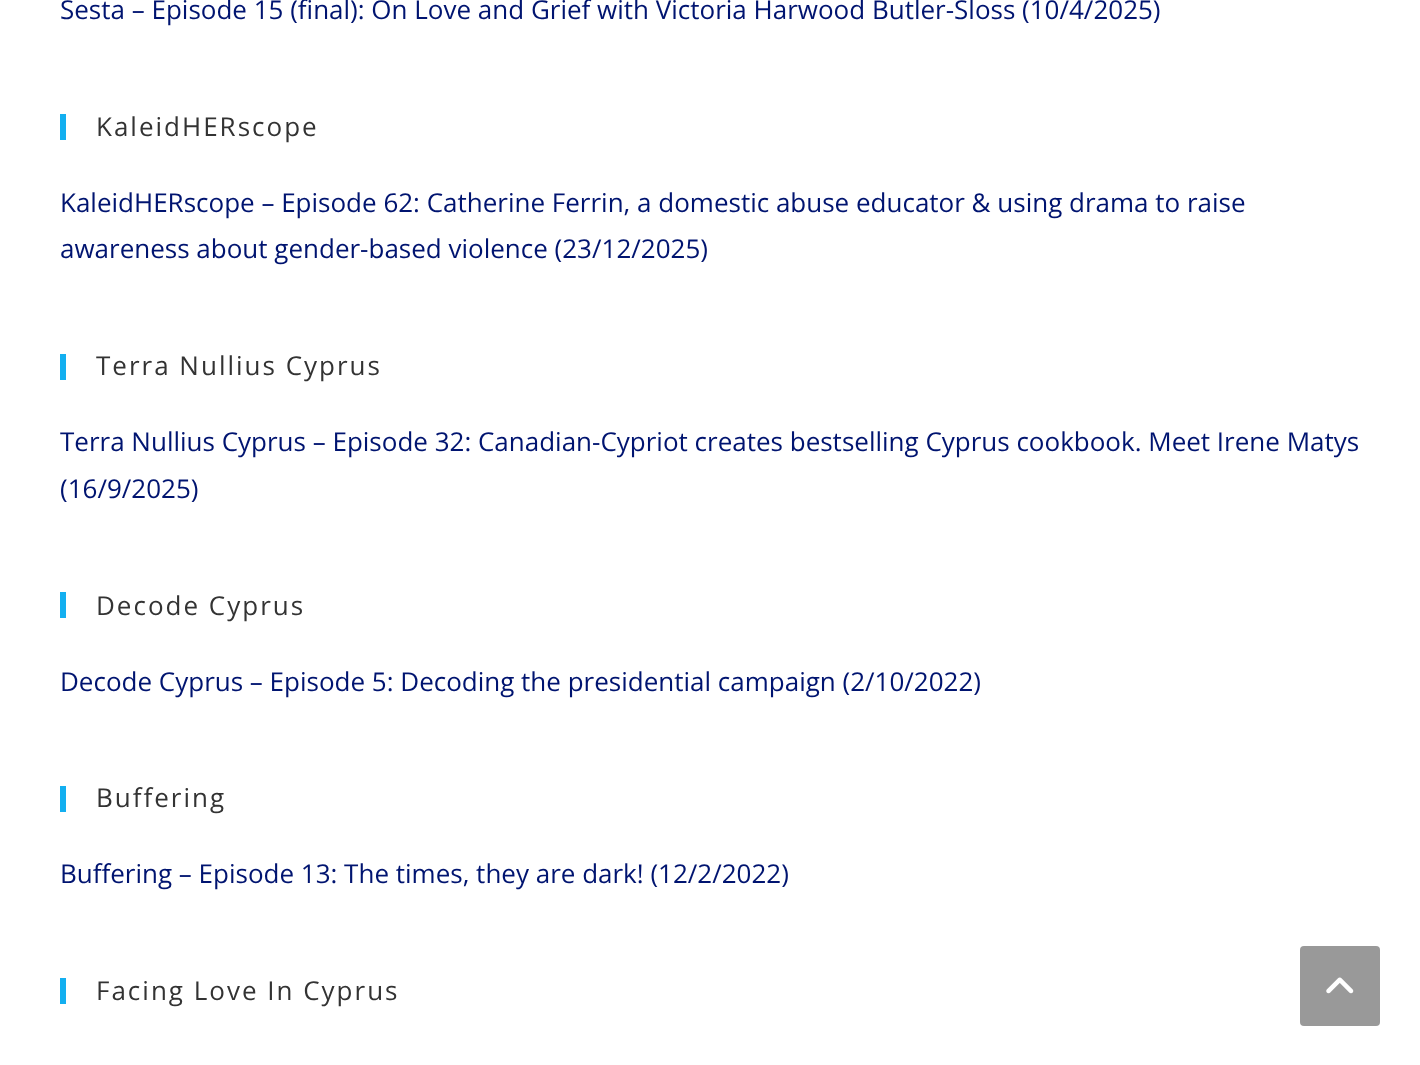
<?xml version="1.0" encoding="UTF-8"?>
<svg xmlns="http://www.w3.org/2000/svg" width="1420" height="1065">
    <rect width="100%" height="100%" fill="#FFFFFF"/>
    <text x="60" y="19" font-family="Open Sans" font-size="26" fill="#001470">Sesta – Episode 15 (final): On Love and Grief with Victoria Harwood Butler-Sloss (10/4/2025)</text>
    <rect x="60" y="114" width="6" height="26" fill="#13AFF0"/>
    <text x="96" y="136" font-family="Open Sans" font-size="26" letter-spacing="2" fill="#333333">KaleidHERscope</text>
    <text font-family="Open Sans" font-size="26" fill="#001470">
        <tspan x="60" y="212">KaleidHERscope – Episode 62: Catherine Ferrin, a domestic abuse educator &amp; using drama to raise</tspan>
        <tspan x="60" y="258">awareness about gender-based violence (23/12/2025)</tspan>
    </text>
    <rect x="60" y="354" width="6" height="26" fill="#13AFF0"/>
    <text x="96" y="375" font-family="Open Sans" font-size="26" letter-spacing="2" fill="#333333">Terra Nullius Cyprus</text>
    <text font-family="Open Sans" font-size="26" fill="#001470">
        <tspan x="60" y="451">Terra Nullius Cyprus – Episode 32: Canadian-Cypriot creates bestselling Cyprus cookbook. Meet Irene Matys</tspan>
        <tspan x="60" y="498">(16/9/2025)</tspan>
    </text>
    <rect x="60" y="592" width="6" height="26" fill="#13AFF0"/>
    <text x="96" y="615" font-family="Open Sans" font-size="26" letter-spacing="2" fill="#333333">Decode Cyprus</text>
    <text x="60" y="691" font-family="Open Sans" font-size="26" fill="#001470">Decode Cyprus – Episode 5: Decoding the presidential campaign (2/10/2022)</text>
    <rect x="60" y="786" width="6" height="26" fill="#13AFF0"/>
    <text x="96" y="807" font-family="Open Sans" font-size="26" letter-spacing="2" fill="#333333">Buffering</text>
    <text x="60" y="883" font-family="Open Sans" font-size="26" fill="#001470">Buffering – Episode 13: The times, they are dark! (12/2/2022)</text>
    <rect x="60" y="978" width="6" height="26" fill="#13AFF0"/>
    <text x="96" y="1000" font-family="Open Sans" font-size="26" letter-spacing="2" fill="#333333">Facing Love In Cyprus</text>
    <rect x="1300" y="946" width="80" height="80" rx="4" fill="#999999"/>
    <image x="1326" y="977" width="28" height="17" href="img_01.png"/>
</svg>
